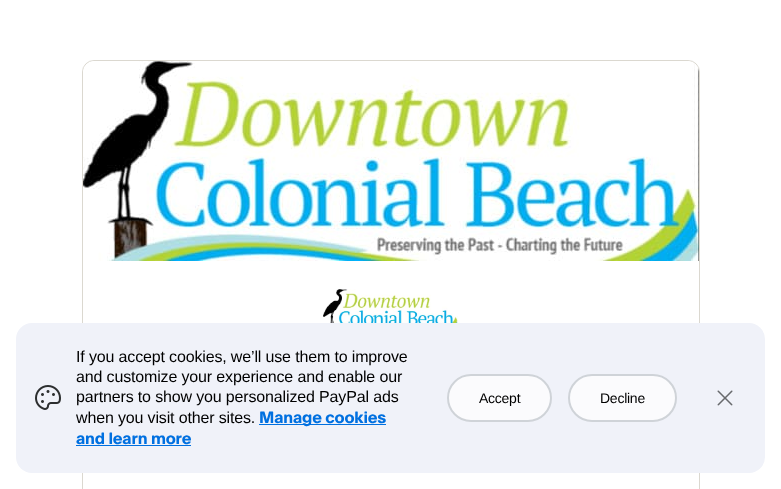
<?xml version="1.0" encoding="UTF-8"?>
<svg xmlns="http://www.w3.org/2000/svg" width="781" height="489">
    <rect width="100%" height="100%" fill="#FFFFFF"/>
    <rect x="82.5" y="60.5" width="617" height="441" rx="11.5" fill="none" stroke="#DBD8D0"/>
    <image x="83" y="61" width="616" height="200" href="img_01.png"/>
    <image x="323" y="289" width="135" height="34" href="img_02.png"/>
    <rect x="16" y="323" width="749" height="150" rx="16" fill="#F0F2F9"/>
    <image x="35" y="385" width="26" height="25" href="img_03.png"/>
    <text font-family="Liberation Sans" font-size="16" letter-spacing="-0.15" fill="#000000">
        <tspan x="76" y="362">If you accept cookies, we’ll use them to improve</tspan>
        <tspan x="76" y="382">and customize your experience and enable our</tspan>
        <tspan x="76" y="402">partners to show you personalized PayPal ads</tspan>
        <tspan x="76" y="423">when you visit other sites.</tspan>
    </text>
    <rect x="259" y="424" width="127" height="1" fill="#0070E0"/>
    <text x="259" y="423" font-family="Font" font-size="16" font-weight="700" letter-spacing="-0.15" fill="#0070E0">Manage cookies</text>
    <text x="76" y="444" font-family="Font" font-size="16" font-weight="700" letter-spacing="-0.15" fill="#0070E0">and learn more</text>
    <rect x="76" y="445" width="115" height="1" fill="#0070E0"/>
    <rect x="448" y="375" width="103" height="46" rx="23" fill="#FBFBFD" stroke="#CFD3D8" stroke-width="2"/>
    <text x="479" y="403" font-family="Liberation Sans" font-size="14" letter-spacing="-0.25" fill="#000000">Accept</text>
    <rect x="569" y="375" width="107" height="46" rx="23" fill="#FBFBFD" stroke="#CFD3D8" stroke-width="2"/>
    <text x="600" y="403" font-family="Liberation Sans" font-size="14" letter-spacing="-0.25" fill="#000000">Decline</text>
    <image x="717" y="390" width="16" height="16" href="img_04.png"/>
</svg>
